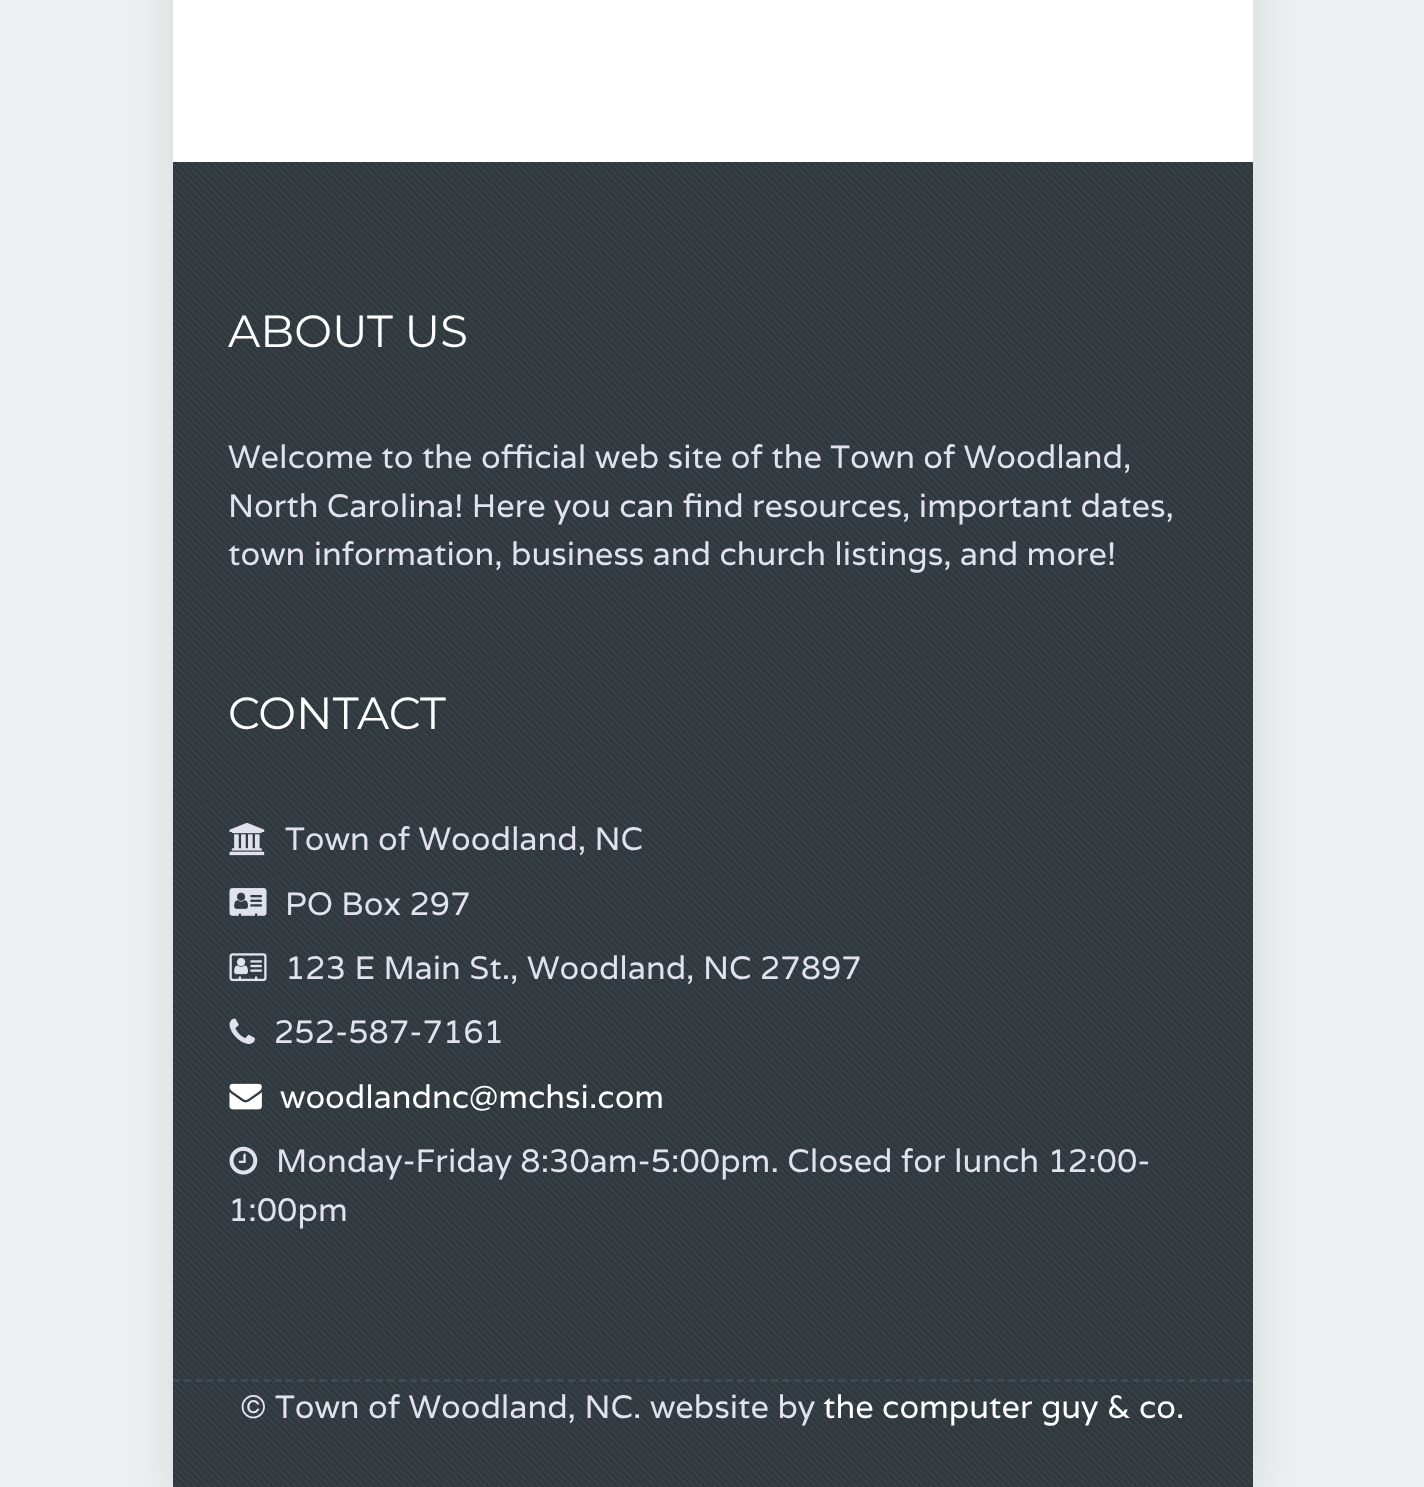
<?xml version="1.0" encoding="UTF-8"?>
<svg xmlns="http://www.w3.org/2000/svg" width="1424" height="1487">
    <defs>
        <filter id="blur1" x="-50%" y="-200%" width="200%" height="500%"><feGaussianBlur stdDeviation="22.5"/></filter>
    </defs>
    <rect width="100%" height="100%" fill="#ECF0F1"/>
    <rect x="173" y="-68" width="1080" height="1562" fill="#000000" fill-opacity="0.1" filter="url(#blur1)"/>
    <rect x="173" y="0" width="1080" height="162" fill="#FFFFFF"/>
    <rect x="173" y="162" width="1080" height="1325" fill="#2E373C"/>
    <image x="173" y="162" width="1080" height="1217" href="img_01.png"/>
    <text x="228" y="347" font-family="Montserrat" font-size="45" font-weight="100" fill="#FFFFFF">ABOUT US</text>
    <text font-family="Varela" font-size="32.4" fill="#E1E2EC">
        <tspan x="228" y="468">Welcome to the official web site of the Town of Woodland,</tspan>
        <tspan x="228" y="517">North Carolina! Here you can find resources, important dates,</tspan>
        <tspan x="228" y="565">town information, business and church listings, and more!</tspan>
    </text>
    <text x="228" y="729" font-family="Montserrat" font-size="45" font-weight="100" fill="#FFFFFF">CONTACT</text>
    <image x="229" y="822" width="36" height="34" href="img_02.png"/>
    <text x="285" y="850" font-family="Varela" font-size="32.4" fill="#E1E2EC">Town of Woodland, NC</text>
    <image x="229" y="888" width="38" height="28" href="img_03.png"/>
    <text x="285" y="915" font-family="Varela" font-size="32.4" fill="#E1E2EC">PO Box 297</text>
    <image x="229" y="953" width="38" height="29" href="img_04.png"/>
    <text x="285" y="979" font-family="Varela" font-size="32.4" fill="#E1E2EC">123 E Main St., Woodland, NC 27897</text>
    <image x="229" y="1018" width="26" height="26" href="img_05.png"/>
    <text x="274" y="1043" font-family="Varela" font-size="32.4" fill="#E1E2EC">252-587-7161</text>
    <image x="229" y="1083" width="33" height="27" href="img_06.png"/>
    <text x="280" y="1108" font-family="Varela" font-size="32.4" fill="#FFFFFF">woodlandnc@mchsi.com</text>
    <image x="229" y="1146" width="29" height="29" href="img_07.png"/>
    <text x="276" y="1172" font-family="Varela" font-size="32.4" fill="#E1E2EC">Monday-Friday 8:30am-5:00pm. Closed for lunch 12:00-</text>
    <text x="228" y="1221" font-family="Varela" font-size="32.4" fill="#E1E2EC">1:00pm</text>
    <image x="173" y="1379" width="1080" height="108" href="img_08.png"/>
    <path d="M 173 1380.5 H 1253" fill="none" stroke="#445159" stroke-width="2.2" stroke-dasharray="6.75 4.54"/>
    <text x="240" y="1418" font-family="Varela" font-size="32.4" fill="#E1E2EC">© Town of Woodland, NC. website by</text>
    <text x="823" y="1418" font-family="Varela" font-size="32.4" fill="#FFFFFF">the computer guy &amp; co.</text>
</svg>
